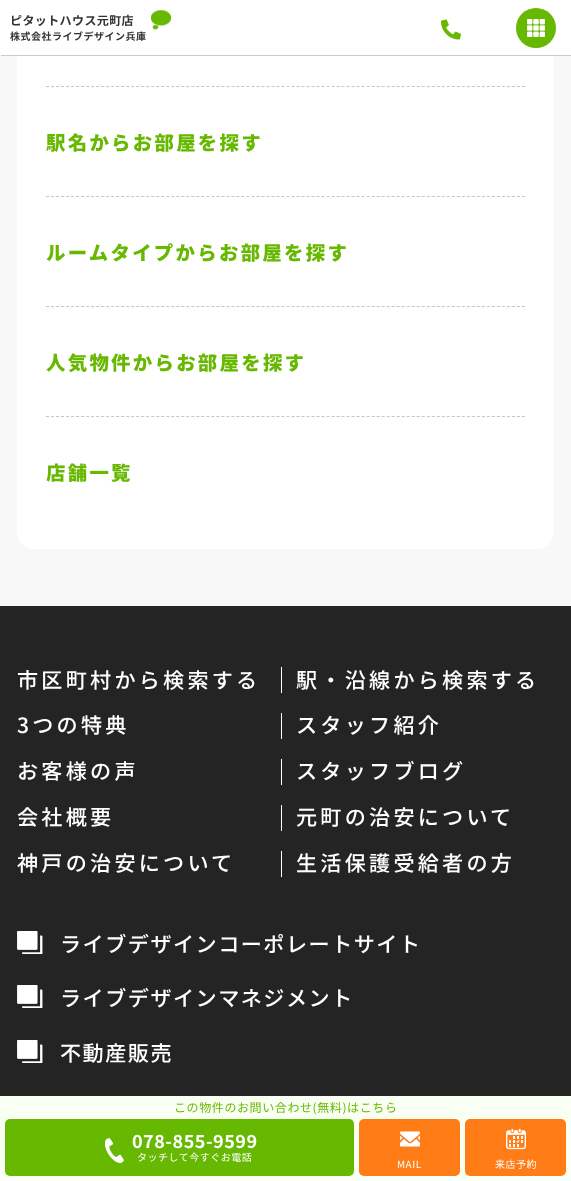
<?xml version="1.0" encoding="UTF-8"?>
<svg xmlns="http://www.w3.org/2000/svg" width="571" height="1181">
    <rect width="100%" height="100%" fill="#F8F8F8"/>
    <rect x="17" y="-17" width="537" height="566" rx="17" fill="#FFFFFF"/>
    <path d="M 1 55 V 56 H 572 V 1 H 571 V 55 Z" fill="#CCCCCC"/>
    <rect x="0" y="0" width="571" height="55" fill="#FFFFFF"/>
    <text x="10" y="25" font-family="Noto Sans JP" font-size="12" font-weight="700" letter-spacing="0.4" fill="#333333">ピタットハウス元町店</text>
    <image x="151" y="10" width="20" height="20" href="img_01.png"/>
    <text x="10" y="40" font-family="Noto Sans JP" font-size="10" font-weight="700" letter-spacing="0.5" fill="#333333">株式会社ライブデザイン兵庫</text>
    <image x="441" y="19" width="20" height="21" href="img_02.png"/>
    <circle cx="536" cy="28" r="20" fill="#66B800"/>
    <image x="527" y="19" width="18" height="18" href="img_03.png"/>
    <path d="M 46 86.5 H 525" fill="none" stroke="#C6C6C6" stroke-dasharray="3 2.01"/>
    <text x="46" y="150" font-family="Noto Sans JP" font-size="19.4" font-weight="900" letter-spacing="2.3" fill="#66B800">駅名からお部屋を探す</text>
    <path d="M 46 196.5 H 525" fill="none" stroke="#C6C6C6" stroke-dasharray="3 2.01"/>
    <text x="46" y="260" font-family="Noto Sans JP" font-size="19.4" font-weight="900" letter-spacing="2.3" fill="#66B800">ルームタイプからお部屋を探す</text>
    <path d="M 46 306.5 H 525" fill="none" stroke="#C6C6C6" stroke-dasharray="3 2.01"/>
    <text x="46" y="370" font-family="Noto Sans JP" font-size="19.4" font-weight="900" letter-spacing="2.3" fill="#66B800">人気物件からお部屋を探す</text>
    <path d="M 46 416.5 H 525" fill="none" stroke="#C6C6C6" stroke-dasharray="3 2.01"/>
    <text x="46" y="480" font-family="Noto Sans JP" font-size="19.4" font-weight="900" letter-spacing="2.3" fill="#66B800">店舗一覧</text>
    <rect x="0" y="606" width="571" height="490" fill="#242424"/>
    <text x="17" y="688" font-family="Noto Sans JP" font-size="21.1" font-weight="500" letter-spacing="3.25" fill="#FFFFFF">市区町村から検索する</text>
    <rect x="281" y="667" width="1" height="26" fill="#FFFFFF"/>
    <text x="296" y="688" font-family="Noto Sans JP" font-size="21.1" font-weight="500" letter-spacing="3.25" fill="#FFFFFF">駅・沿線から検索する</text>
    <text x="17" y="733" font-family="Noto Sans JP" font-size="21.1" font-weight="500" letter-spacing="3.25" fill="#FFFFFF">3つの特典</text>
    <rect x="281" y="713" width="1" height="26" fill="#FFFFFF"/>
    <text x="296" y="733" font-family="Noto Sans JP" font-size="21.1" font-weight="500" letter-spacing="3.25" fill="#FFFFFF">スタッフ紹介</text>
    <text x="17" y="779" font-family="Noto Sans JP" font-size="21.1" font-weight="500" letter-spacing="3.25" fill="#FFFFFF">お客様の声</text>
    <rect x="281" y="759" width="1" height="26" fill="#FFFFFF"/>
    <text x="296" y="779" font-family="Noto Sans JP" font-size="21.1" font-weight="500" letter-spacing="3.25" fill="#FFFFFF">スタッフブログ</text>
    <text x="17" y="825" font-family="Noto Sans JP" font-size="21.1" font-weight="500" letter-spacing="3.25" fill="#FFFFFF">会社概要</text>
    <rect x="281" y="805" width="1" height="26" fill="#FFFFFF"/>
    <text x="296" y="825" font-family="Noto Sans JP" font-size="21.1" font-weight="500" letter-spacing="3.25" fill="#FFFFFF">元町の治安について</text>
    <text x="17" y="871" font-family="Noto Sans JP" font-size="21.1" font-weight="500" letter-spacing="3.25" fill="#FFFFFF">神戸の治安について</text>
    <rect x="281" y="851" width="1" height="26" fill="#FFFFFF"/>
    <text x="296" y="871" font-family="Noto Sans JP" font-size="21.1" font-weight="500" letter-spacing="3.25" fill="#FFFFFF">生活保護受給者の方</text>
    <image x="17" y="931" width="26" height="23" href="img_04.png"/>
    <text x="60" y="952" font-family="Noto Sans JP" font-size="21.1" font-weight="500" letter-spacing="1.5" fill="#FFFFFF">ライブデザインコーポレートサイト</text>
    <image x="17" y="985" width="26" height="23" href="img_04.png"/>
    <text x="60" y="1006" font-family="Noto Sans JP" font-size="21.1" font-weight="500" letter-spacing="1.5" fill="#FFFFFF">ライブデザインマネジメント</text>
    <image x="17" y="1040" width="26" height="23" href="img_04.png"/>
    <text x="60" y="1061" font-family="Noto Sans JP" font-size="21.1" font-weight="500" letter-spacing="1.5" fill="#FFFFFF">不動産販売</text>
    <rect x="0" y="1096" width="571" height="85" fill="#F9FFF2"/>
    <text x="174" y="1112" font-family="Noto Sans JP" font-size="12" letter-spacing="0.6" fill="#66B800">この物件のお問い合わせ(無料)はこちら</text>
    <rect x="5" y="1119" width="349" height="57" rx="5" fill="#66B800"/>
    <image x="105" y="1138" width="19" height="25" href="img_05.png"/>
    <text x="132" y="1148" font-family="Noto Sans JP" font-size="18" font-weight="700" letter-spacing="0.5" fill="#FFFFFF">078-855-9599</text>
    <text x="137" y="1161" font-family="Noto Sans JP" font-size="10" letter-spacing="0.5" fill="#FFFFFF">タッチして今すぐお電話</text>
    <rect x="359" y="1119" width="101" height="57" rx="5" fill="#FF7C17"/>
    <image x="400" y="1131" width="20" height="16" href="img_06.png"/>
    <text x="397" y="1168" font-family="Noto Sans JP" font-size="10" letter-spacing="0.5" fill="#FFFFFF">MAIL</text>
    <rect x="465" y="1119" width="101" height="57" rx="5" fill="#FF7C17"/>
    <image x="506" y="1128" width="20" height="22" href="img_07.png"/>
    <text x="495" y="1168" font-family="Noto Sans JP" font-size="10" letter-spacing="0.5" fill="#FFFFFF">来店予約</text>
</svg>
